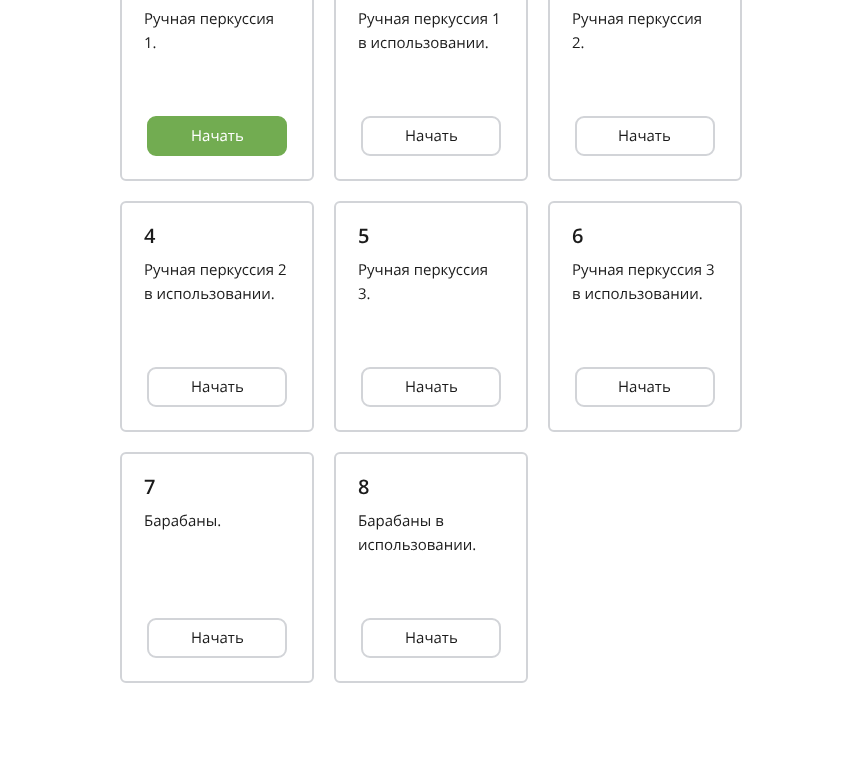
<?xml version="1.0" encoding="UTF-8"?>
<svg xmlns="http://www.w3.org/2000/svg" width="866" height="783">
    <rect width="100%" height="100%" fill="#FFFFFF"/>
    <rect x="121" y="-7" width="192" height="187" rx="5" fill="none" stroke="#D2D4D8" stroke-width="2"/>
    <text font-family="Open Sans" font-size="15" fill="#1B1B1B">
        <tspan x="144" y="24">Ручная перкуссия</tspan>
        <tspan x="144" y="48">1.</tspan>
    </text>
    <rect x="148" y="117" width="138" height="38" rx="8" fill="#72AC51" stroke="#72AC51" stroke-width="2"/>
    <text x="191" y="141" font-family="Open Sans" font-size="15" fill="#FFFFFF">Начать</text>
    <rect x="335" y="-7" width="192" height="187" rx="5" fill="none" stroke="#D2D4D8" stroke-width="2"/>
    <text font-family="Open Sans" font-size="15" fill="#1B1B1B">
        <tspan x="358" y="24">Ручная перкуссия 1</tspan>
        <tspan x="358" y="48">в использовании.</tspan>
    </text>
    <rect x="362" y="117" width="138" height="38" rx="8" fill="none" stroke="#D2D4D8" stroke-width="2"/>
    <text x="405" y="141" font-family="Open Sans" font-size="15" fill="#1B1B1B">Начать</text>
    <rect x="549" y="-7" width="192" height="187" rx="5" fill="none" stroke="#D2D4D8" stroke-width="2"/>
    <text font-family="Open Sans" font-size="15" fill="#1B1B1B">
        <tspan x="572" y="24">Ручная перкуссия</tspan>
        <tspan x="572" y="48">2.</tspan>
    </text>
    <rect x="576" y="117" width="138" height="38" rx="8" fill="none" stroke="#D2D4D8" stroke-width="2"/>
    <text x="618" y="141" font-family="Open Sans" font-size="15" fill="#1B1B1B">Начать</text>
    <rect x="121" y="202" width="192" height="229" rx="5" fill="none" stroke="#D2D4D8" stroke-width="2"/>
    <text x="144" y="243" font-family="Open Sans" font-size="20" font-weight="600" fill="#1B1B1B">4</text>
    <text font-family="Open Sans" font-size="15" fill="#1B1B1B">
        <tspan x="144" y="275">Ручная перкуссия 2</tspan>
        <tspan x="144" y="299">в использовании.</tspan>
    </text>
    <rect x="148" y="368" width="138" height="38" rx="8" fill="none" stroke="#D2D4D8" stroke-width="2"/>
    <text x="191" y="392" font-family="Open Sans" font-size="15" fill="#1B1B1B">Начать</text>
    <rect x="335" y="202" width="192" height="229" rx="5" fill="none" stroke="#D2D4D8" stroke-width="2"/>
    <text x="358" y="243" font-family="Open Sans" font-size="20" font-weight="600" fill="#1B1B1B">5</text>
    <text font-family="Open Sans" font-size="15" fill="#1B1B1B">
        <tspan x="358" y="275">Ручная перкуссия</tspan>
        <tspan x="358" y="299">3.</tspan>
    </text>
    <rect x="362" y="368" width="138" height="38" rx="8" fill="none" stroke="#D2D4D8" stroke-width="2"/>
    <text x="405" y="392" font-family="Open Sans" font-size="15" fill="#1B1B1B">Начать</text>
    <rect x="549" y="202" width="192" height="229" rx="5" fill="none" stroke="#D2D4D8" stroke-width="2"/>
    <text x="572" y="243" font-family="Open Sans" font-size="20" font-weight="600" fill="#1B1B1B">6</text>
    <text font-family="Open Sans" font-size="15" fill="#1B1B1B">
        <tspan x="572" y="275">Ручная перкуссия 3</tspan>
        <tspan x="572" y="299">в использовании.</tspan>
    </text>
    <rect x="576" y="368" width="138" height="38" rx="8" fill="none" stroke="#D2D4D8" stroke-width="2"/>
    <text x="618" y="392" font-family="Open Sans" font-size="15" fill="#1B1B1B">Начать</text>
    <rect x="121" y="453" width="192" height="229" rx="5" fill="none" stroke="#D2D4D8" stroke-width="2"/>
    <text x="144" y="494" font-family="Open Sans" font-size="20" font-weight="600" fill="#1B1B1B">7</text>
    <text x="144" y="526" font-family="Open Sans" font-size="15" fill="#1B1B1B">Барабаны.</text>
    <rect x="148" y="619" width="138" height="38" rx="8" fill="none" stroke="#D2D4D8" stroke-width="2"/>
    <text x="191" y="643" font-family="Open Sans" font-size="15" fill="#1B1B1B">Начать</text>
    <rect x="335" y="453" width="192" height="229" rx="5" fill="none" stroke="#D2D4D8" stroke-width="2"/>
    <text x="358" y="494" font-family="Open Sans" font-size="20" font-weight="600" fill="#1B1B1B">8</text>
    <text font-family="Open Sans" font-size="15" fill="#1B1B1B">
        <tspan x="358" y="526">Барабаны в</tspan>
        <tspan x="358" y="550">использовании.</tspan>
    </text>
    <rect x="362" y="619" width="138" height="38" rx="8" fill="none" stroke="#D2D4D8" stroke-width="2"/>
    <text x="405" y="643" font-family="Open Sans" font-size="15" fill="#1B1B1B">Начать</text>
</svg>
